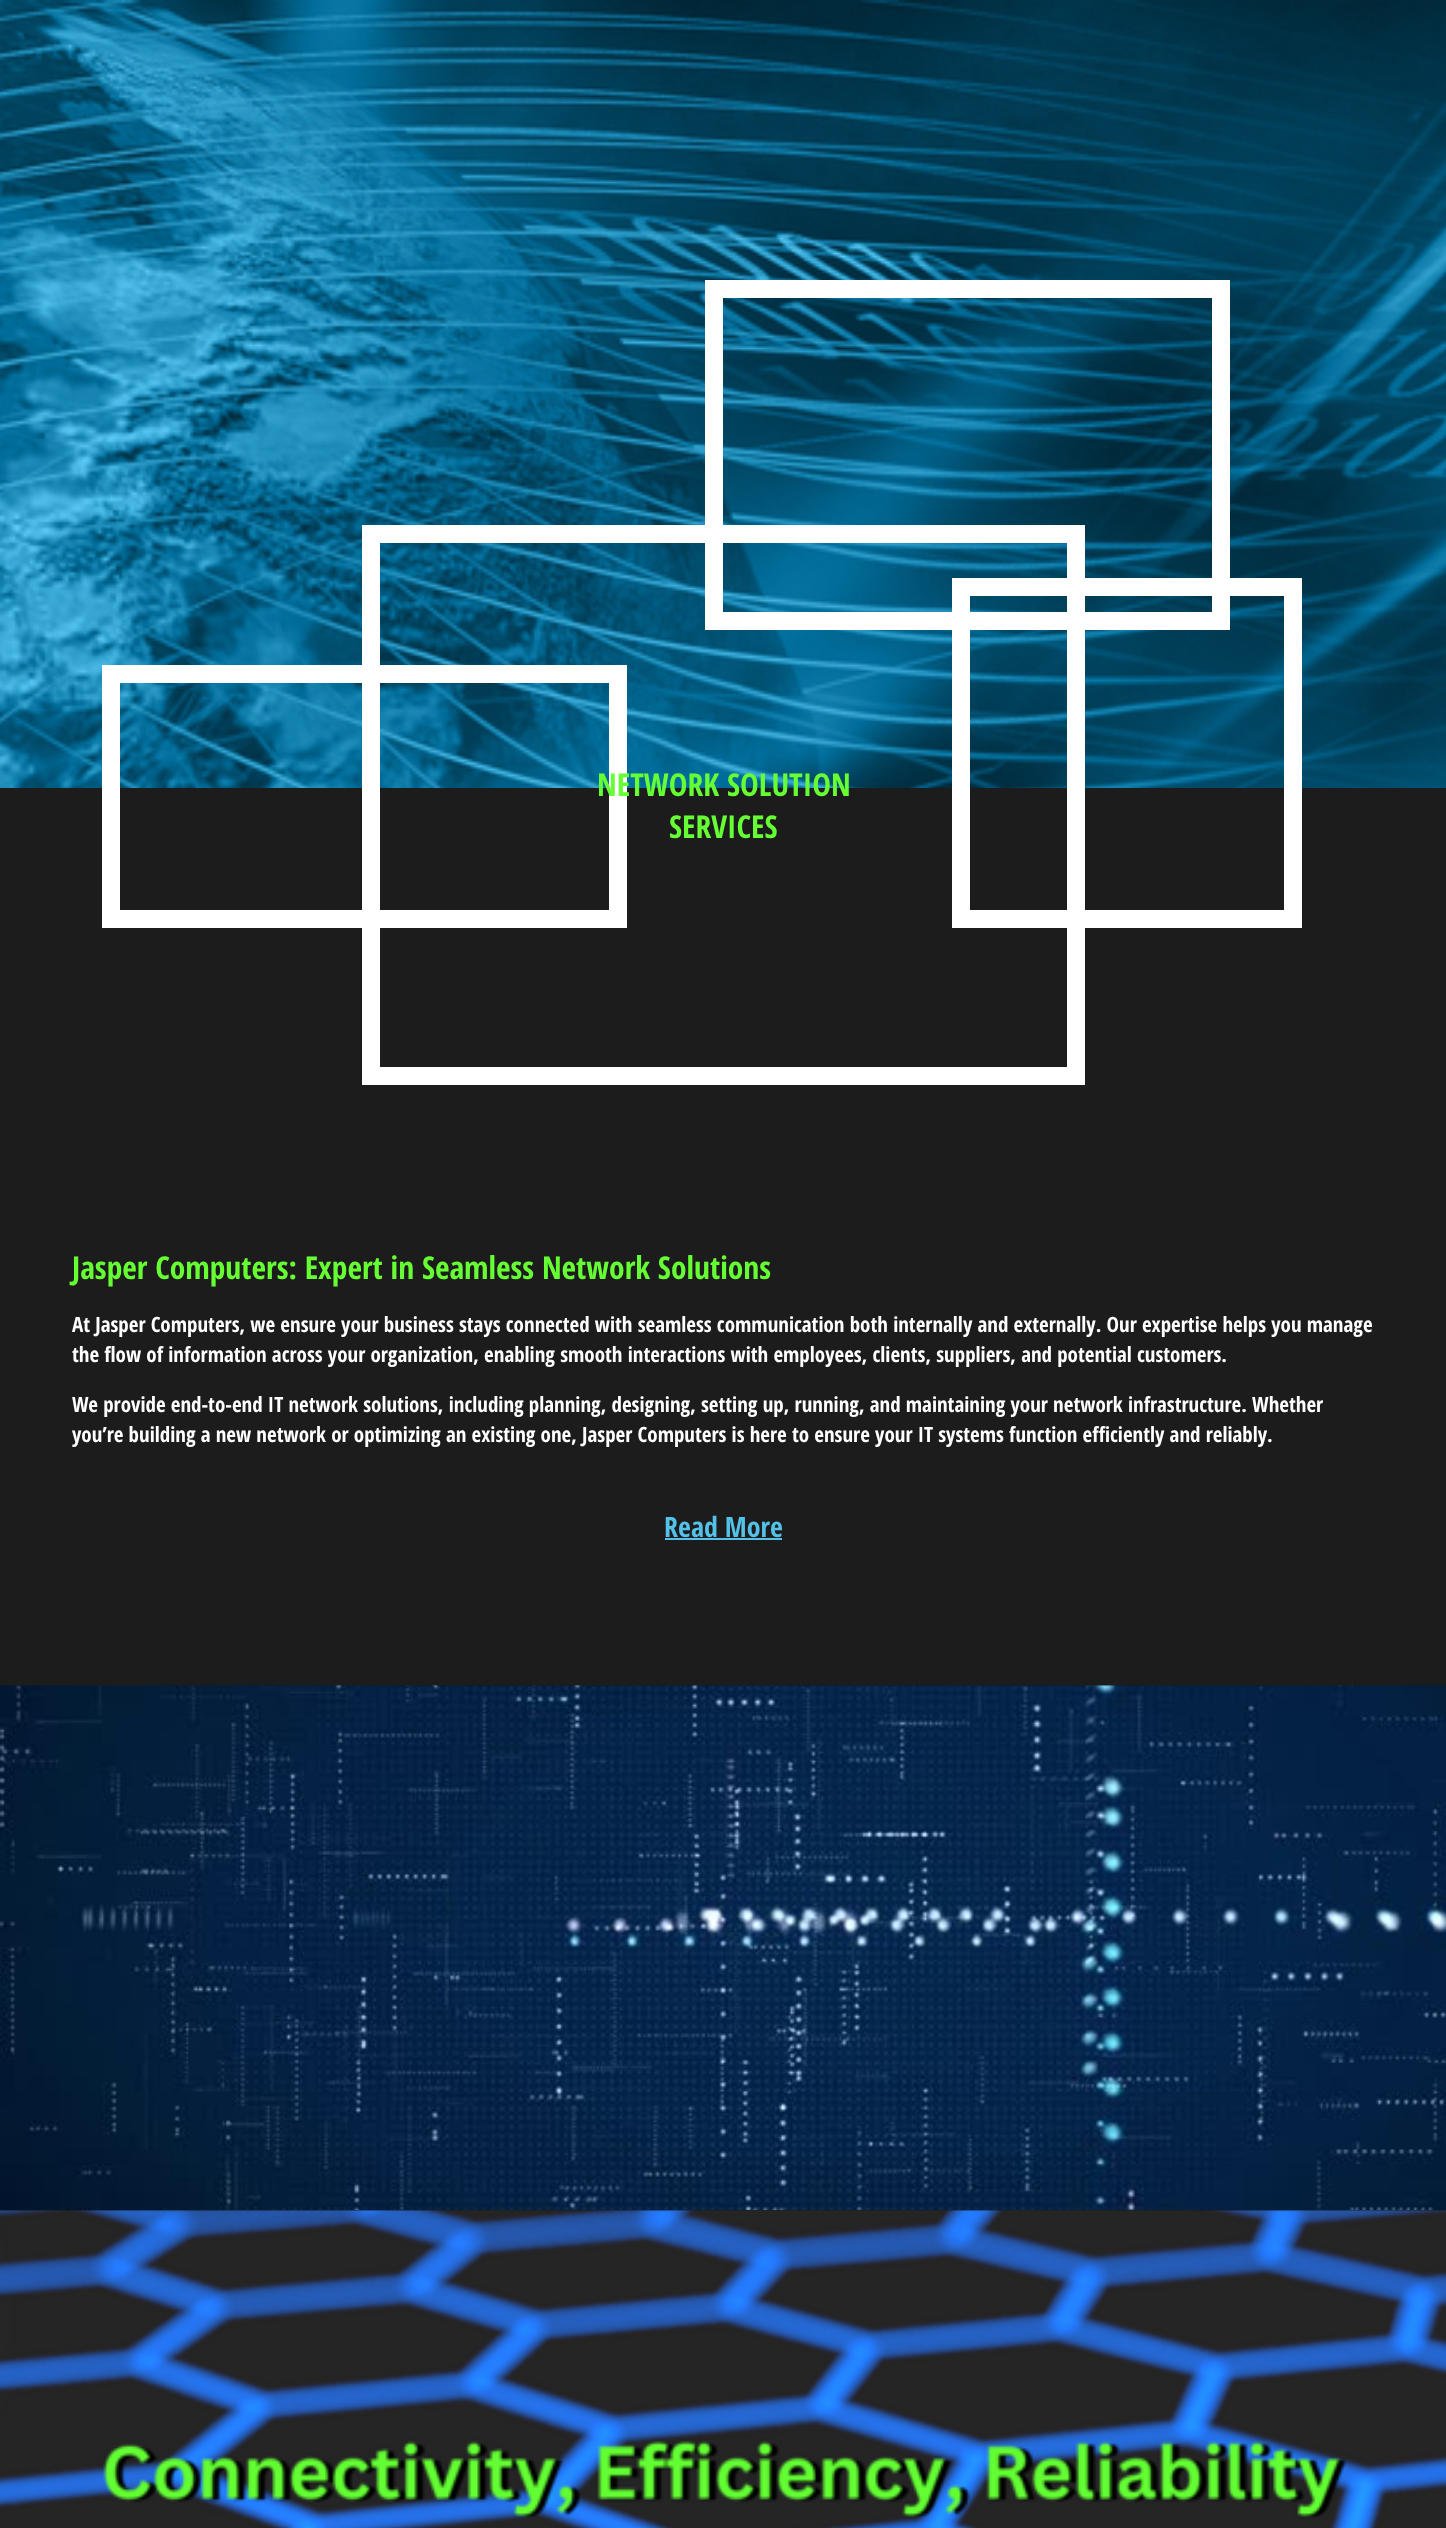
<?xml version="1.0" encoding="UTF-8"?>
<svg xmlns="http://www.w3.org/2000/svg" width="1446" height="2528">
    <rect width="100%" height="100%" fill="#1C1C1C"/>
    <image x="0" y="0" width="1446" height="788" href="img_01.png"/>
    <rect x="714" y="289" width="507" height="332" fill="none" stroke="#FFFFFF" stroke-width="18"/>
    <rect x="111" y="674" width="507" height="245" fill="none" stroke="#FFFFFF" stroke-width="18"/>
    <rect x="961" y="587" width="332" height="332" fill="none" stroke="#FFFFFF" stroke-width="18"/>
    <rect x="371" y="534" width="705" height="542" fill="none" stroke="#FFFFFF" stroke-width="18"/>
    <text x="597" y="796" font-family="Open Sans Condensed" font-size="31.5" font-weight="700" fill="#66FF33">NETWORK SOLUTION</text>
    <text x="669" y="838" font-family="Open Sans Condensed" font-size="31.5" font-weight="700" fill="#66FF33">SERVICES</text>
    <text x="72" y="1279" font-family="Open Sans Condensed" font-size="31.5" font-weight="700" fill="#66FF33">Jasper Computers: Expert in Seamless Network Solutions</text>
    <text font-family="Open Sans Condensed" font-size="21" font-weight="700" fill="#FFFFFF">
        <tspan x="72" y="1332">At Jasper Computers, we ensure your business stays connected with seamless communication both internally and externally. Our expertise helps you manage</tspan>
        <tspan x="72" y="1362">the flow of information across your organization, enabling smooth interactions with employees, clients, suppliers, and potential customers.</tspan>
    </text>
    <text font-family="Open Sans Condensed" font-size="21" font-weight="700" fill="#FFFFFF">
        <tspan x="72" y="1412">We provide end-to-end IT network solutions, including planning, designing, setting up, running, and maintaining your network infrastructure. Whether</tspan>
        <tspan x="72" y="1442">you’re building a new network or optimizing an existing one, Jasper Computers is here to ensure your IT systems function efficiently and reliably.</tspan>
    </text>
    <text x="664" y="1537" font-family="Open Sans Condensed" font-size="28" font-weight="700" fill="#54C1E8">Read More</text>
    <rect x="665" y="1538" width="117" height="2" fill="#54C1E8"/>
    <image x="0" y="1685" width="1446" height="526" href="img_02.png"/>
    <image x="0" y="2210" width="1446" height="318" href="img_03.png"/>
</svg>
